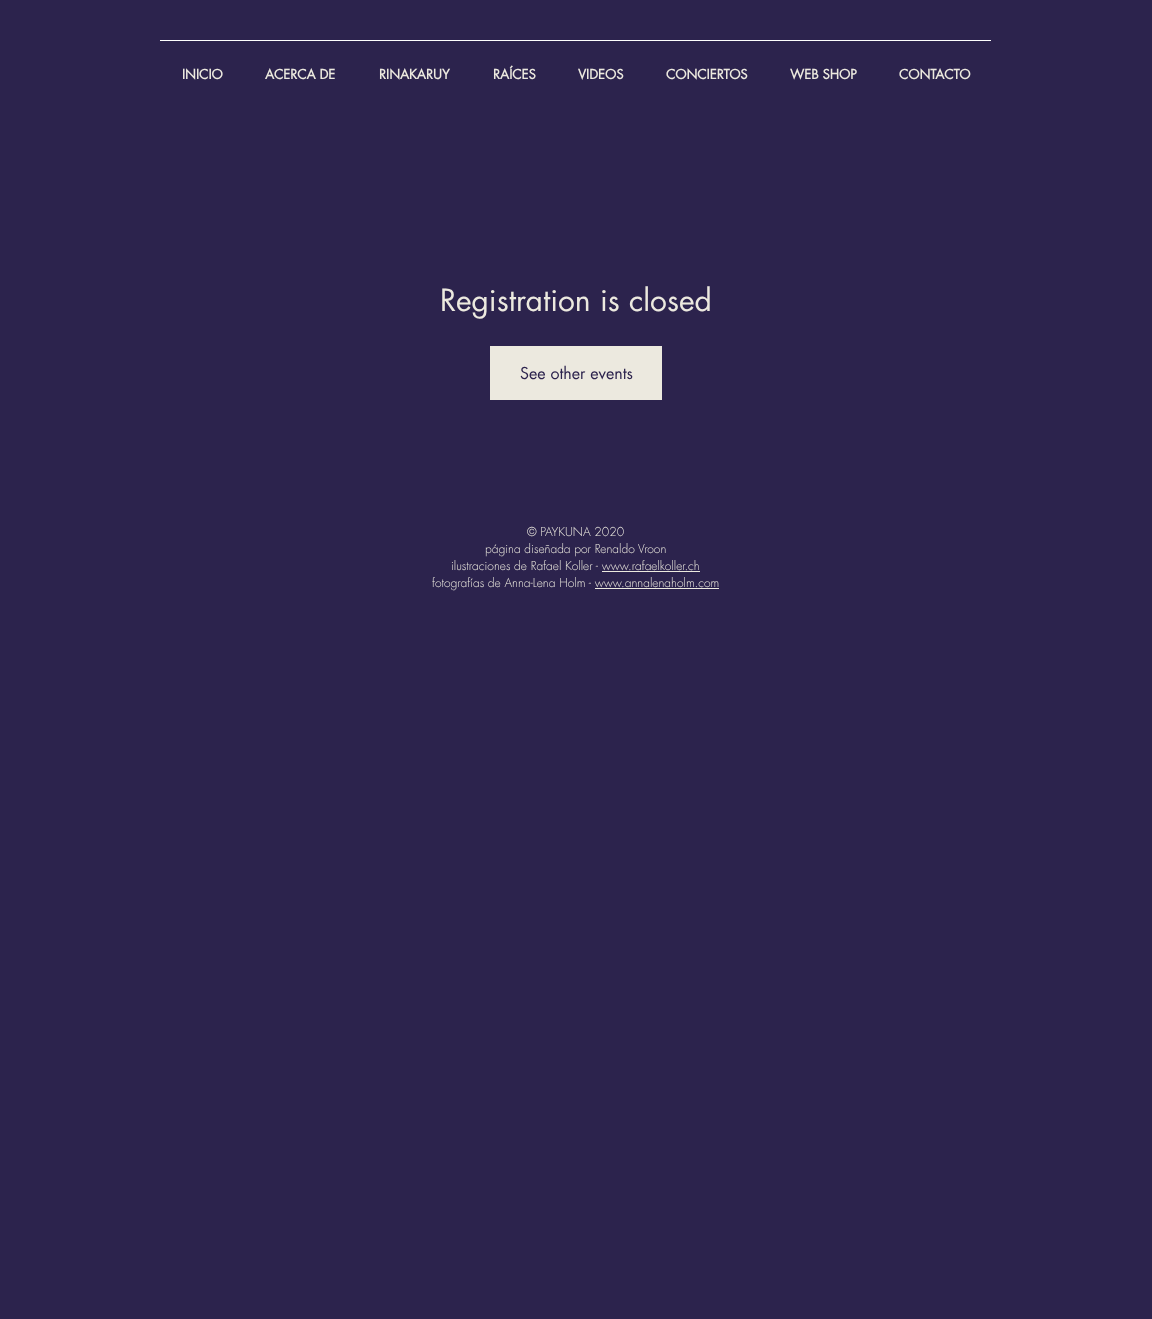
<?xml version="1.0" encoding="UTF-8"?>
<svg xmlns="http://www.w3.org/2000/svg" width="1152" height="1319">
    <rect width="100%" height="100%" fill="#2C234D"/>
    <rect x="160" y="40" width="831" height="1" fill="#FFFFFF"/>
    <text x="182" y="79" font-family="futura" font-size="13" font-weight="700" fill="#ECE9DF">INICIO</text>
    <text x="265" y="79" font-family="futura" font-size="13" font-weight="700" fill="#ECE9DF">ACERCA DE</text>
    <text x="379" y="79" font-family="futura" font-size="13" font-weight="700" fill="#ECE9DF">RINAKARUY</text>
    <text x="493" y="79" font-family="futura" font-size="13" font-weight="700" fill="#ECE9DF">RAÍCES</text>
    <text x="578" y="79" font-family="futura" font-size="13" font-weight="700" fill="#ECE9DF">VIDEOS</text>
    <text x="666" y="79" font-family="futura" font-size="13" font-weight="700" fill="#ECE9DF">CONCIERTOS</text>
    <text x="790" y="79" font-family="futura" font-size="13" font-weight="700" fill="#ECE9DF">WEB SHOP</text>
    <text x="899" y="79" font-family="futura" font-size="13" font-weight="700" fill="#ECE9DF">CONTACTO</text>
    <text x="440" y="311" font-family="futura" font-size="30" fill="#ECE9DF">Registration is closed</text>
    <rect x="490" y="346" width="172" height="54" fill="#ECE9DF"/>
    <text x="520" y="379" font-family="futura" font-size="16" fill="#2C234D">See other events</text>
    <text x="527" y="536" font-family="futura" font-size="12" font-weight="300" fill="#ECE9DF">© PAYKUNA 2020</text>
    <text x="485" y="553" font-family="futura" font-size="12" font-weight="300" fill="#ECE9DF">página diseñada por Renaldo Vroon</text>
    <text x="451" y="570" font-family="futura" font-size="12" font-weight="300" fill="#ECE9DF">ilustraciones de Rafael Koller - www.rafaelkoller.ch</text>
    <rect x="602" y="571" width="98" height="1" fill="#ECE9DF"/>
    <text x="432" y="587" font-family="futura" font-size="12" font-weight="300" fill="#ECE9DF">fotografías de Anna-Lena Holm - www.annalenaholm.com</text>
    <rect x="595" y="588" width="124" height="1" fill="#ECE9DF"/>
</svg>
